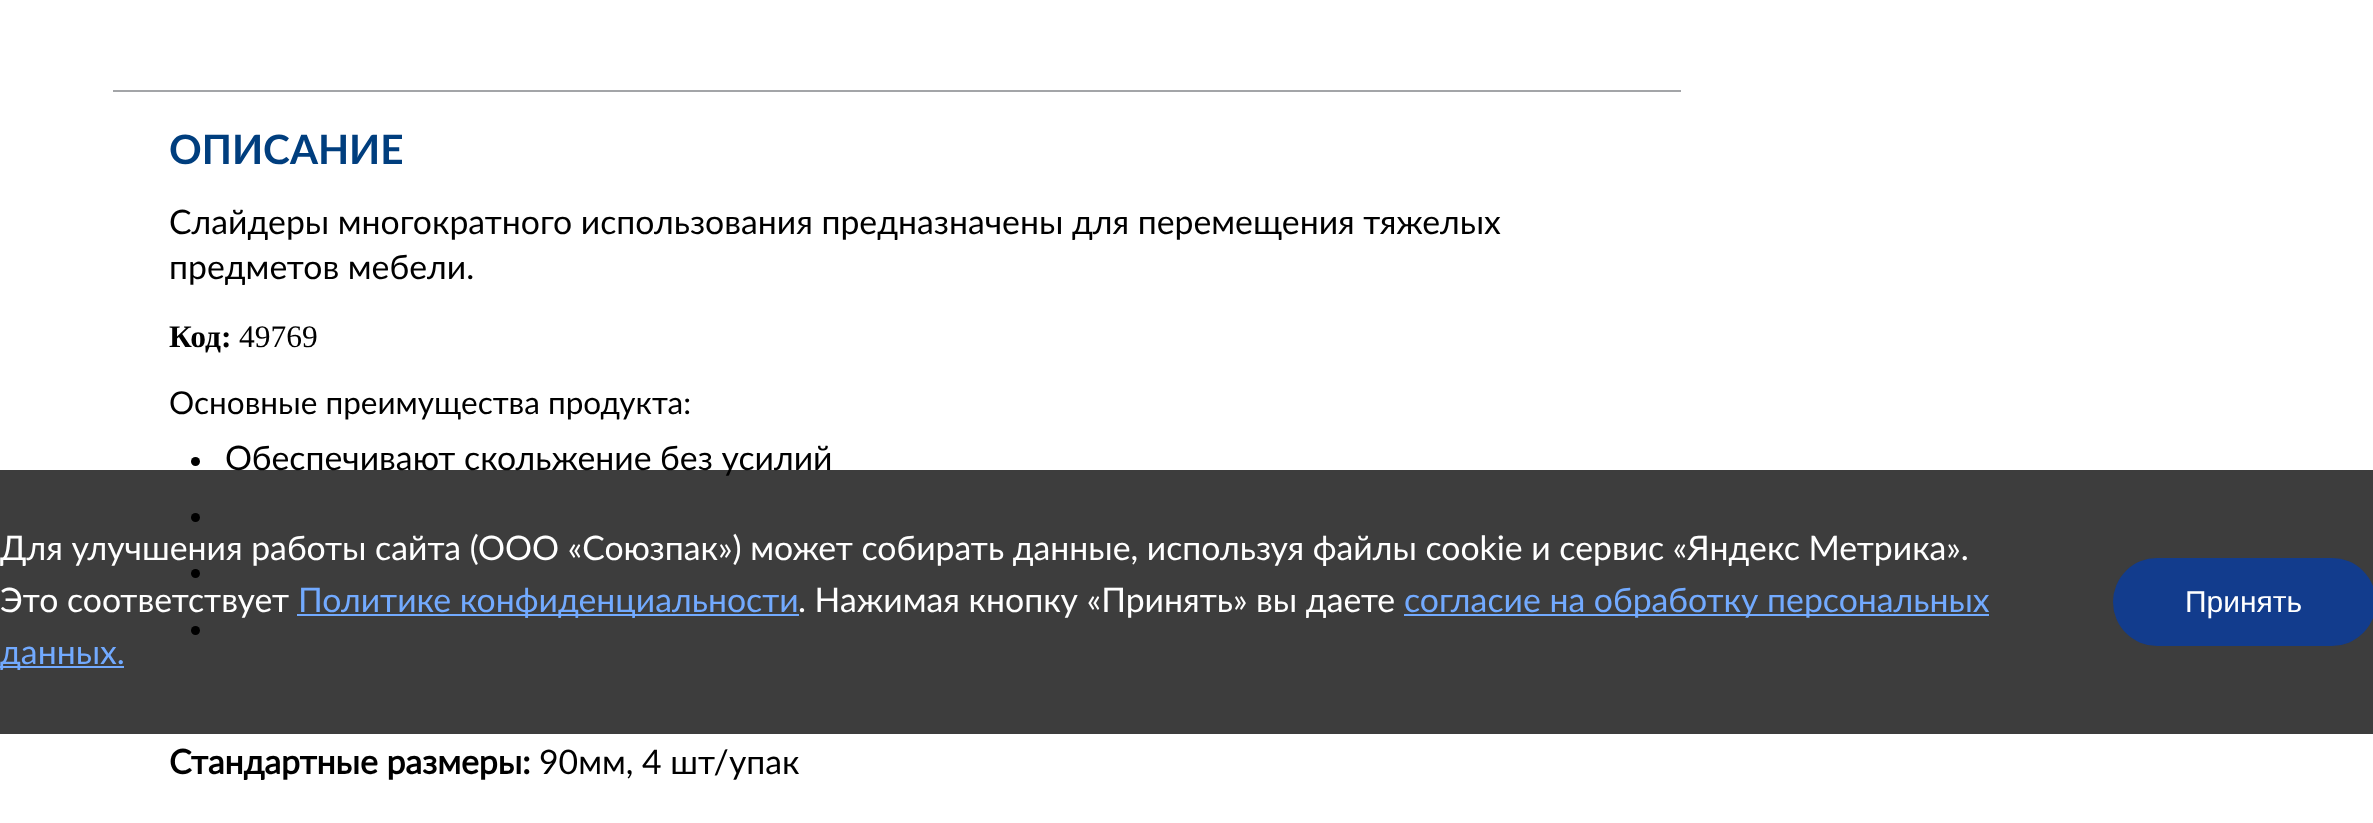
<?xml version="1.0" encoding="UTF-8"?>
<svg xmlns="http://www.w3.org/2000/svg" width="2373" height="823">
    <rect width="100%" height="100%" fill="#FFFFFF"/>
    <rect x="113" y="90" width="1568" height="2" fill="#A3A5A8"/>
    <text x="169" y="164" font-family="Lato" font-size="40.5" font-weight="700" fill="#003E7E">ОПИСАНИЕ</text>
    <text font-family="Lato" font-size="33.75" fill="#000000">
        <tspan x="169" y="234">Слайдеры многократного использования предназначены для перемещения тяжелых</tspan>
        <tspan x="169" y="279">предметов мебели.</tspan>
    </text>
    <text x="169" y="347" font-family="Liberation Serif" font-size="31.5" font-weight="700" fill="#000000">Код:</text>
    <text x="239" y="347" font-family="Liberation Serif" font-size="31.5" fill="#000000">49769</text>
    <text x="169" y="414" font-family="Lato" font-size="31.5" fill="#000000">Основные преимущества продукта:</text>
    <circle cx="195.5" cy="461.5" r="4.5" fill="#000000"/>
    <text x="225" y="470" font-family="Lato" font-size="33.75" fill="#000000">Обеспечивают скольжение без усилий</text>
    <circle cx="195.5" cy="517.5" r="4.5" fill="#000000"/>
    <circle cx="195.5" cy="573.5" r="4.5" fill="#000000"/>
    <circle cx="195.5" cy="630.5" r="4.5" fill="#000000"/>
    <text x="169" y="774" font-family="'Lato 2'" font-size="33.75" font-weight="700" fill="#000000">Стандартные размеры:</text>
    <text x="539" y="774" font-family="Lato" font-size="33.75" fill="#000000">90мм, 4 шт/упак</text>
    <rect x="0" y="470" width="2373" height="264" fill="#000000" fill-opacity="0.76"/>
    <text font-family="Lato" font-size="33.75" fill="#FFFFFF">
        <tspan x="0" y="560">Для улучшения работы сайта (ООО «Союзпак») может собирать данные, используя файлы cookie и сервис «Яндекс Метрика».</tspan>
        <tspan x="0" y="612">Это соответствует</tspan>
    </text>
    <rect x="297" y="614" width="502" height="2" fill="#72AAFF"/>
    <text x="298" y="612" font-family="Lato" font-size="33.75" fill="#72AAFF">Политике конфиденциальности</text>
    <text x="798" y="612" font-family="Lato" font-size="33.75" fill="#FFFFFF">. Нажимая кнопку «Принять» вы даете</text>
    <rect x="1404" y="614" width="585" height="2" fill="#72AAFF"/>
    <text x="1404" y="612" font-family="Lato" font-size="33.75" fill="#72AAFF">согласие на обработку персональных</text>
    <rect x="0" y="666" width="124" height="2" fill="#72AAFF"/>
    <text x="0" y="664" font-family="Lato" font-size="33.75" fill="#72AAFF">данных.</text>
    <rect x="2113" y="558" width="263" height="88" rx="44" fill="#123C8D"/>
    <text x="2185" y="612" font-family="Liberation Sans" font-size="30" fill="#FFFFFF">Принять</text>
</svg>
